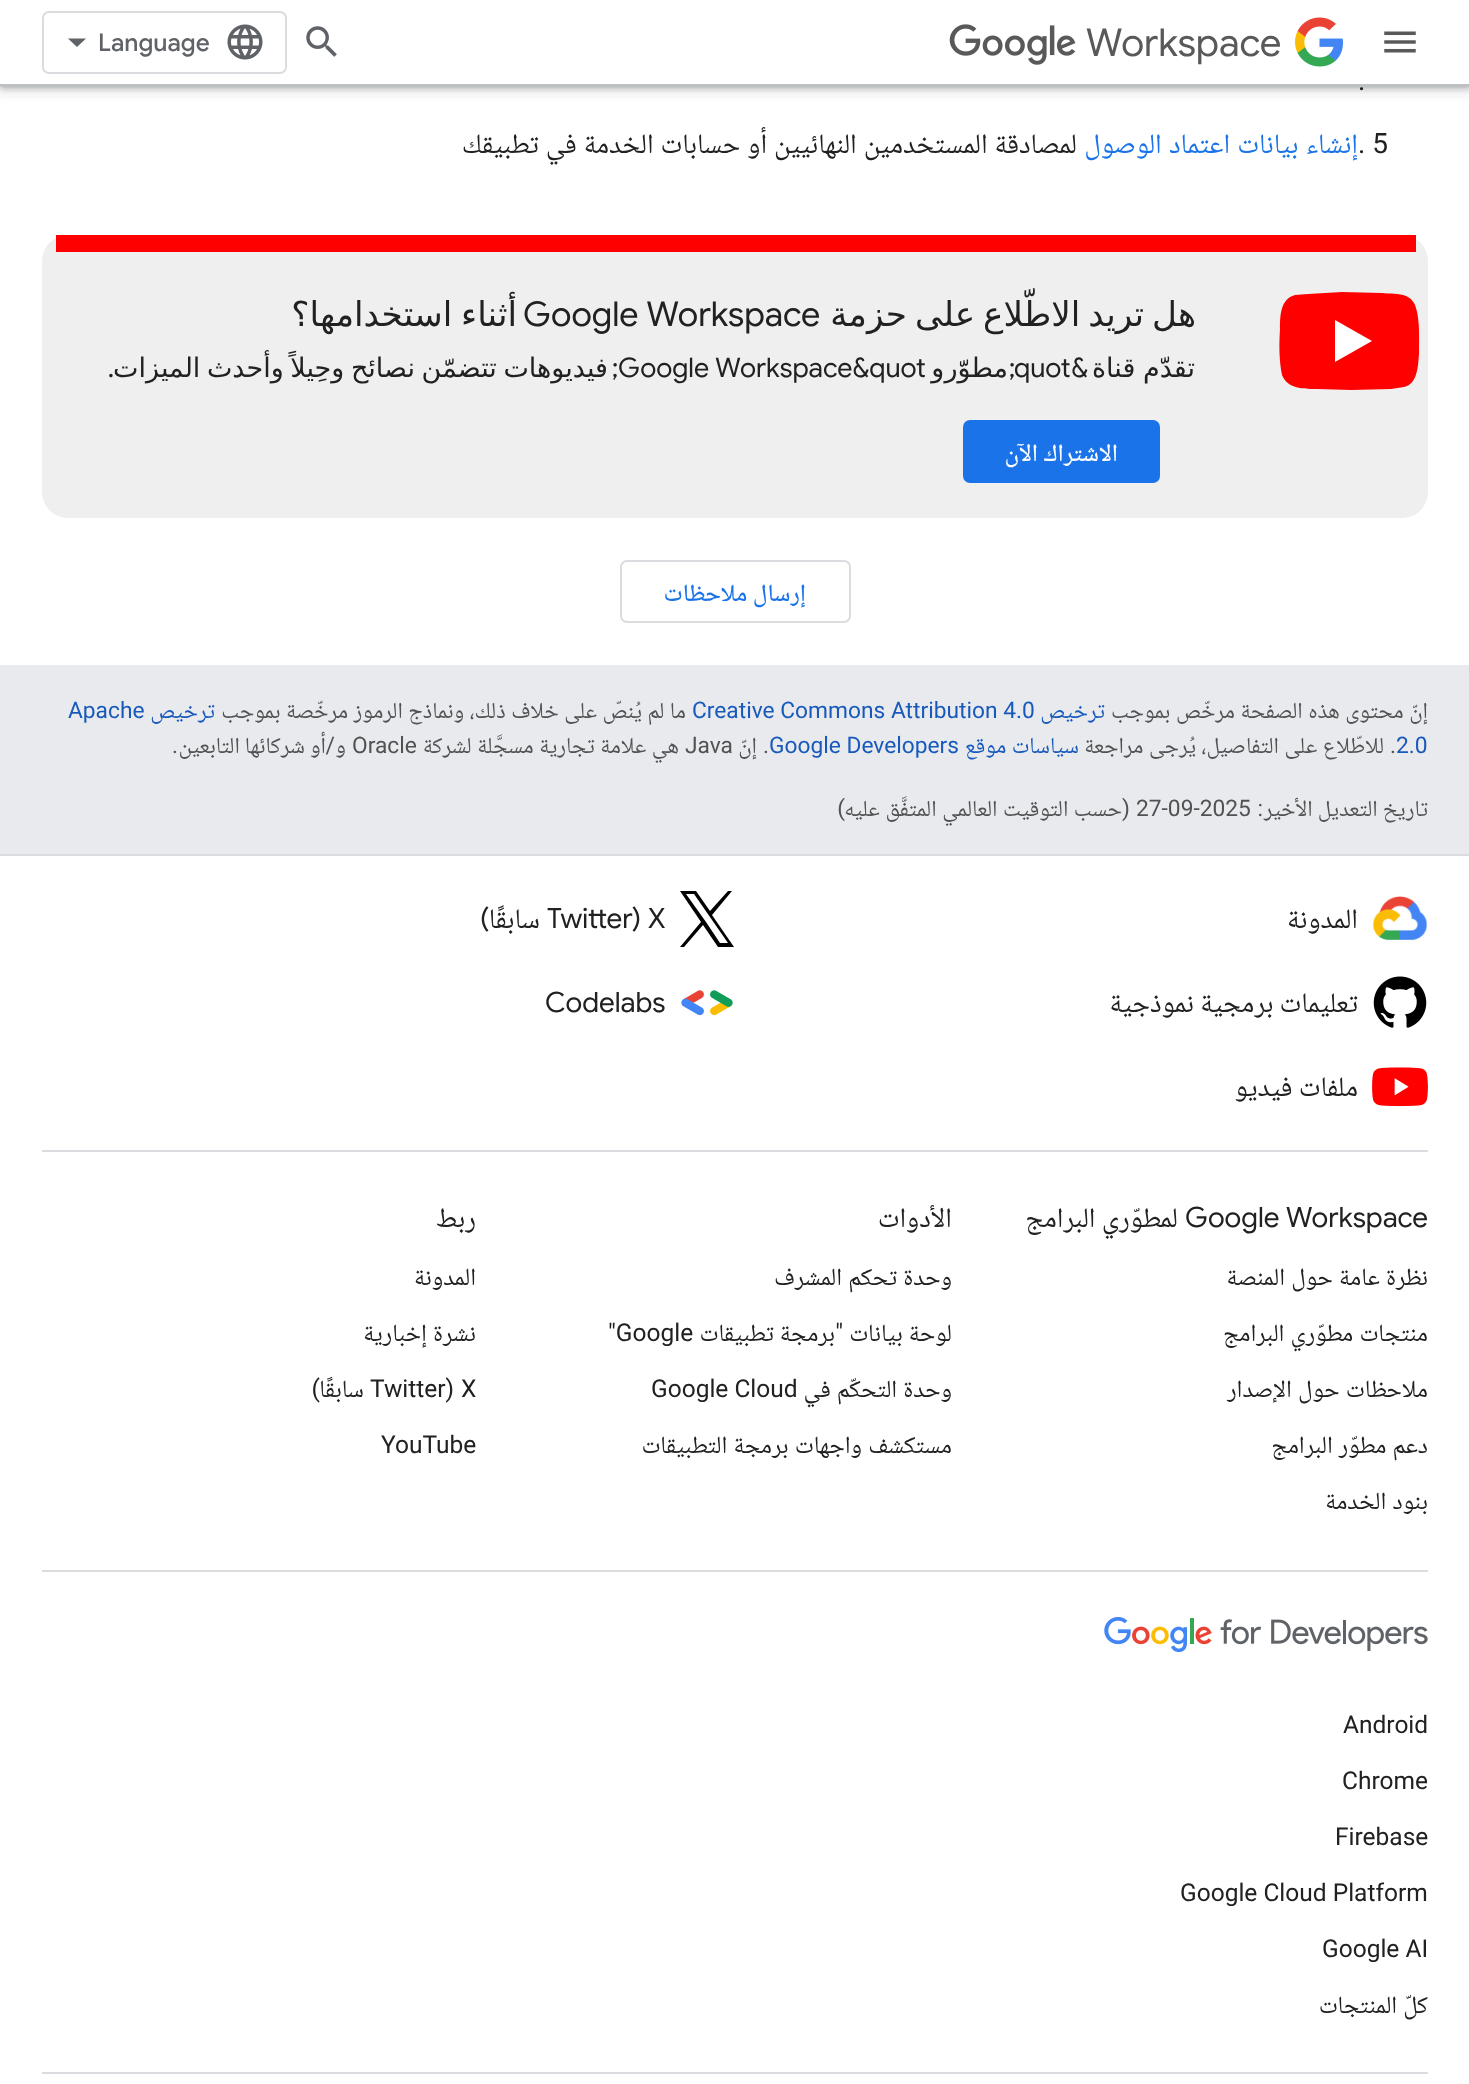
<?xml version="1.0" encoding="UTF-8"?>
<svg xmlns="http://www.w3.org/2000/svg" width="1469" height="2084">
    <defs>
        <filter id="blur1" x="-50%" y="-200%" width="200%" height="500%"><feGaussianBlur stdDeviation="5"/></filter>
        <filter id="blur2" x="-50%" y="-200%" width="200%" height="500%"><feGaussianBlur stdDeviation="2"/></filter>
    </defs>
    <rect width="100%" height="100%" fill="#E8EAED"/>
    <rect x="0" y="86" width="1469" height="579" fill="#FFFFFF"/>
    <rect x="-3" y="-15" width="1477" height="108" fill="#3C4043" fill-opacity="0.15" filter="url(#blur1)"/>
    <rect x="0" y="-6" width="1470" height="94" fill="#3C4043" fill-opacity="0.3" filter="url(#blur2)"/>
    <rect x="0" y="0" width="1469" height="84" fill="#FFFFFF"/>
    <rect x="0" y="84" width="1469" height="2" fill="#BDC1C6"/>
    <image x="1384" y="31" width="32" height="22" href="img_01.png"/>
    <image x="1295" y="17" width="48" height="50" href="img_02.png"/>
    <text x="1086" y="56" font-family="Google Sans" font-size="38.5" fill="#595959">Workspace</text>
    <image x="949" y="24" width="127" height="41" href="img_03.png"/>
    <image x="306" y="26" width="31" height="31" href="img_04.png"/>
    <rect x="43" y="12" width="243" height="61" rx="6" fill="none" stroke="#DADCE0" stroke-width="2"/>
    <image x="227" y="24" width="36" height="36" href="img_05.png"/>
    <text x="98" y="51" font-family="Google Sans" font-size="24.5" font-weight="500" fill="#5F6368">Language</text>
    <path d="M 77 47 L 68 38.5 H 86 Z" fill="#5F6368"/>
    <text x="1358" y="90" font-family="Roboto" font-size="28" fill="#212121">.</text>
    <text x="1358" y="153" font-family="Roboto" font-size="28" fill="#212121">. 5</text>
    <text x="1358" y="153" word-spacing="1" font-family="Noto Naskh Arabic" font-size="28" direction="rtl" fill="#1A73E8">إنشاء بيانات اعتماد الوصول</text>
    <text x="1077" y="153" word-spacing="0.75" font-family="Noto Naskh Arabic" font-size="28" direction="rtl" fill="#212121">لمصادقة المستخدمين النهائيين أو حسابات الخدمة في تطبيقك</text>
    <rect x="42" y="235" width="1386" height="283" rx="26" fill="#EFEFEF"/>
    <rect x="56" y="235" width="1360" height="17" fill="#FF0000"/>
    <path d="M 1416 308 C 1415 303 1411 298 1406 296 C 1399 293 1389 294 1382 293 L 1342 292 L 1308 294 L 1295 295 C 1280 299 1280 317 1280 329 C 1279 344 1279 360 1282 375 C 1284 380 1288 384 1293 386 C 1300 389 1309 389 1317 389 L 1351 390 L 1391 389 L 1404 387 C 1418 384 1418 365 1419 354 C 1419 339 1420 321 1416 308 Z" fill="#FF0000"/>
    <path d="M 1335 362 L 1372 341 L 1335 320 Z" fill="#FFFFFF"/>
    <text x="1196" y="326" word-spacing="-3" font-family="DejaVu Sans" font-size="34.25" direction="rtl" fill="#212121">هل تريد الاطّلاع على حزمة</text>
    <text x="523" y="326" font-family="Google Sans" font-size="34.25" fill="#212121">Google Workspace</text>
    <text x="517" y="326" word-spacing="-2" font-family="DejaVu Sans" font-size="34.25" direction="rtl" fill="#212121">أثناء استخدامها؟</text>
    <text x="1195" y="377" word-spacing="-1" font-family="DejaVu Sans" font-size="27" direction="rtl" fill="#212121">تقدّم قناة</text>
    <text x="1088" y="377" font-family="Google Sans" font-size="27" direction="rtl" fill="#212121">&amp;</text>
    <text x="1014" y="377" font-family="Google Sans" font-size="27" fill="#212121">quot</text>
    <text x="1008" y="377" font-family="DejaVu Sans" font-size="27" direction="rtl" fill="#212121">مطوّرو</text>
    <text x="618" y="377" font-family="Google Sans" font-size="27" fill="#212121">Google Workspace&amp;quot</text>
    <text x="608" y="377" word-spacing="-2" font-family="DejaVu Sans" font-size="27" direction="rtl" fill="#212121">فيديوهات تتضمّن نصائح وحِيلاً وأحدث الميزات</text>
    <text x="1015" y="377" font-family="Google Sans" font-size="27" direction="rtl" fill="#212121">;</text>
    <text x="618" y="377" font-family="Google Sans" font-size="27" direction="rtl" fill="#212121">;</text>
    <text x="114" y="377" font-family="Google Sans" font-size="27" direction="rtl" fill="#212121">.</text>
    <rect x="963" y="420" width="197" height="63" rx="7" fill="#1A73E8"/>
    <text x="1118" y="461" font-family="Noto Naskh Arabic" font-size="24.5" font-weight="500" direction="rtl" fill="#FFFFFF">الاشتراك الآن</text>
    <rect x="621" y="561" width="229" height="61" rx="6" fill="none" stroke="#DADCE0" stroke-width="2"/>
    <text x="806" y="601" font-family="Noto Naskh Arabic" font-size="24.5" font-weight="500" direction="rtl" fill="#1A73E8">إرسال ملاحظات</text>
    <text x="1428" y="718" word-spacing="0.5" font-family="Noto Naskh Arabic" font-size="22.75" direction="rtl" fill="#515253">إنّ محتوى هذه الصفحة مرخّص بموجب</text>
    <text x="1105" y="718" font-family="Noto Naskh Arabic" font-size="22.75" direction="rtl" fill="#185ABC">ترخيص</text>
    <text x="692" y="718" font-family="Roboto" font-size="22.75" fill="#185ABC">Creative Commons Attribution 4.0</text>
    <text x="686" y="718" word-spacing="0.5" font-family="Noto Naskh Arabic" font-size="22.75" direction="rtl" fill="#515253">ما لم يُنصّ على خلاف ذلك، ونماذج الرموز مرخّصة بموجب</text>
    <text x="215" y="718" font-family="Noto Naskh Arabic" font-size="22.75" direction="rtl" fill="#185ABC">ترخيص</text>
    <text x="68" y="718" font-family="Roboto" font-size="22.75" fill="#185ABC">Apache</text>
    <text x="1396" y="753" font-family="Roboto" font-size="22.75" fill="#185ABC">2.0</text>
    <text x="1396" y="753" font-family="Roboto" font-size="22.75" direction="rtl" fill="#515253">.</text>
    <text x="1384" y="753" word-spacing="0.5" font-family="Noto Naskh Arabic" font-size="22.75" direction="rtl" fill="#515253">للاطّلاع على التفاصيل، يُرجى مراجعة</text>
    <text x="1079" y="753" word-spacing="0.5" font-family="Noto Naskh Arabic" font-size="22.75" direction="rtl" fill="#185ABC">سياسات موقع</text>
    <text x="769" y="753" font-family="Roboto" font-size="22.75" fill="#185ABC">Google Developers</text>
    <text x="769" y="753" font-family="Roboto" font-size="22.75" direction="rtl" fill="#515253">.</text>
    <text x="757" y="753" font-family="Noto Naskh Arabic" font-size="22.75" direction="rtl" fill="#515253">إنّ</text>
    <text x="685" y="753" font-family="Roboto" font-size="22.75" fill="#515253">Java</text>
    <text x="679" y="753" word-spacing="0.5" font-family="Noto Naskh Arabic" font-size="22.75" direction="rtl" fill="#515253">هي علامة تجارية مسجَّلة لشركة</text>
    <text x="352" y="753" font-family="Roboto" font-size="22.75" fill="#515253">Oracle</text>
    <text x="346" y="753" font-family="Noto Naskh Arabic" font-size="22.75" direction="rtl" fill="#515253">و</text>
    <text x="335" y="753" font-family="Roboto" font-size="22.75" direction="rtl" fill="#515253">/</text>
    <text x="326" y="753" font-family="Noto Naskh Arabic" font-size="22.75" direction="rtl" fill="#515253">أو شركائها التابعين</text>
    <text x="178" y="753" font-family="Roboto" font-size="22.75" direction="rtl" fill="#515253">.</text>
    <text x="1428" y="816" font-family="Noto Naskh Arabic" font-size="22.75" direction="rtl" fill="#515253">تاريخ التعديل الأخير</text>
    <text x="1263" y="816" font-family="Roboto" font-size="22.75" direction="rtl" fill="#515253">:</text>
    <text x="1136" y="816" font-family="Roboto" font-size="22.75" fill="#515253">27-09-2025</text>
    <text x="1130" y="816" font-family="Roboto" font-size="22.75" direction="rtl" fill="#515253">(</text>
    <text x="1122" y="816" word-spacing="0.5" font-family="Noto Naskh Arabic" font-size="22.75" direction="rtl" fill="#515253">حسب التوقيت العالمي المتفَّق عليه</text>
    <text x="845" y="816" font-family="Roboto" font-size="22.75" direction="rtl" fill="#515253">)</text>
    <rect x="0" y="856" width="1469" height="1228" fill="#FFFFFF"/>
    <rect x="0" y="854" width="1469" height="2" fill="#DADCE0"/>
    <rect x="42" y="1150" width="1386" height="2" fill="#DADCE0"/>
    <image x="1372" y="896" width="56" height="44" href="img_06.png"/>
    <text x="1358" y="928" font-family="Noto Naskh Arabic" font-size="28" direction="rtl" fill="#212121">المدونة</text>
    <path d="M 712 915 L 732 891 H 728 L 710 911 L 696 891 H 680 L 701 922 L 680 947 H 684 L 703 925 L 718 947 H 734 Z M 706 922 L 686 894 H 694 L 728 943 H 720 Z" fill="#000000"/>
    <text x="648" y="928" font-family="Google Sans" font-size="28" fill="#212121">X</text>
    <text x="641" y="928" font-family="Google Sans" font-size="28" direction="rtl" fill="#212121">(</text>
    <text x="547" y="928" font-family="Google Sans" font-size="28" fill="#212121">Twitter</text>
    <text x="540" y="928" font-family="Noto Naskh Arabic" font-size="28" direction="rtl" fill="#212121">سابقًا</text>
    <text x="489" y="928" font-family="Google Sans" font-size="28" direction="rtl" fill="#212121">)</text>
    <image x="1373" y="976" width="54" height="52" href="img_07.png"/>
    <text x="1358" y="1012" font-family="Noto Naskh Arabic" font-size="28" direction="rtl" fill="#212121">تعليمات برمجية نموذجية</text>
    <image x="681" y="990" width="52" height="26" href="img_08.png"/>
    <text x="545" y="1012" font-family="Google Sans" font-size="28" fill="#212121">Codelabs</text>
    <image x="1372" y="1067" width="56" height="40" href="img_09.png"/>
    <text x="1358" y="1096" font-family="Noto Naskh Arabic" font-size="28" direction="rtl" fill="#212121">ملفات فيديو</text>
    <rect x="42" y="1570" width="1386" height="2" fill="#DADCE0"/>
    <text x="1185" y="1227" font-family="Google Sans" font-size="28" fill="#212121">Google Workspace</text>
    <text x="1178" y="1227" font-family="Noto Naskh Arabic" font-size="28" direction="rtl" fill="#212121">لمطوّري البرامج</text>
    <text x="1428" y="1285" word-spacing="0.75" font-family="Noto Naskh Arabic" font-size="24.5" direction="rtl" fill="#212121">نظرة عامة حول المنصة</text>
    <text x="1428" y="1341" word-spacing="0.75" font-family="Noto Naskh Arabic" font-size="24.5" direction="rtl" fill="#212121">منتجات مطوّري البرامج</text>
    <text x="1428" y="1397" word-spacing="0.75" font-family="Noto Naskh Arabic" font-size="24.5" direction="rtl" fill="#212121">ملاحظات حول الإصدار</text>
    <text x="1428" y="1453" word-spacing="0.75" font-family="Noto Naskh Arabic" font-size="24.5" direction="rtl" fill="#212121">دعم مطوّر البرامج</text>
    <text x="1428" y="1509" word-spacing="0.75" font-family="Noto Naskh Arabic" font-size="24.5" direction="rtl" fill="#212121">بنود الخدمة</text>
    <text x="952" y="1227" font-family="Noto Naskh Arabic" font-size="28" direction="rtl" fill="#212121">الأدوات</text>
    <text x="952" y="1285" word-spacing="0.75" font-family="Noto Naskh Arabic" font-size="24.5" direction="rtl" fill="#212121">وحدة تحكم المشرف</text>
    <text x="952" y="1341" word-spacing="0.5" font-family="Noto Naskh Arabic" font-size="24.5" direction="rtl" fill="#212121">لوحة بيانات</text>
    <text x="843" y="1341" font-family="Roboto" font-size="24.5" direction="rtl" fill="#212121">"</text>
    <text x="835" y="1341" word-spacing="0.5" font-family="Noto Naskh Arabic" font-size="24.5" direction="rtl" fill="#212121">برمجة تطبيقات</text>
    <text x="608" y="1341" font-family="Roboto" font-size="24.5" fill="#212121">"Google</text>
    <text x="952" y="1397" word-spacing="0.75" font-family="Noto Naskh Arabic" font-size="24.5" direction="rtl" fill="#212121">وحدة التحكّم في</text>
    <text x="651" y="1397" font-family="Roboto" font-size="24.5" fill="#212121">Google Cloud</text>
    <text x="952" y="1453" word-spacing="0.75" font-family="Noto Naskh Arabic" font-size="24.5" direction="rtl" fill="#212121">مستكشف واجهات برمجة التطبيقات</text>
    <text x="476" y="1227" font-family="Noto Naskh Arabic" font-size="28" direction="rtl" fill="#212121">ربط</text>
    <text x="476" y="1285" font-family="Noto Naskh Arabic" font-size="24.5" direction="rtl" fill="#212121">المدونة</text>
    <text x="476" y="1341" word-spacing="0.75" font-family="Noto Naskh Arabic" font-size="24.5" direction="rtl" fill="#212121">نشرة إخبارية</text>
    <text x="461" y="1397" font-family="Roboto" font-size="24.5" fill="#212121">X</text>
    <text x="454" y="1397" font-family="Roboto" font-size="24.5" direction="rtl" fill="#212121">(</text>
    <text x="370" y="1397" font-family="Roboto" font-size="24.5" fill="#212121">Twitter</text>
    <text x="364" y="1397" font-family="Noto Naskh Arabic" font-size="24.5" direction="rtl" fill="#212121">سابقًا</text>
    <text x="320" y="1397" font-family="Roboto" font-size="24.5" direction="rtl" fill="#212121">)</text>
    <text x="381" y="1453" font-family="Roboto" font-size="24.5" fill="#212121">YouTube</text>
    <rect x="42" y="2072" width="1386" height="2" fill="#DADCE0"/>
    <image x="1104" y="1617" width="324" height="35" href="img_10.png"/>
    <text x="1343" y="1733" font-family="Roboto" font-size="24.5" fill="#212121">Android</text>
    <text x="1342" y="1789" font-family="Roboto" font-size="24.5" fill="#212121">Chrome</text>
    <text x="1335" y="1845" font-family="Roboto" font-size="24.5" fill="#212121">Firebase</text>
    <text x="1180" y="1901" font-family="Roboto" font-size="24.5" fill="#212121">Google Cloud Platform</text>
    <text x="1322" y="1957" font-family="Roboto" font-size="24.5" fill="#212121">Google AI</text>
    <text x="1428" y="2013" word-spacing="0.75" font-family="Noto Naskh Arabic" font-size="24.5" direction="rtl" fill="#212121">كلّ المنتجات</text>
</svg>
